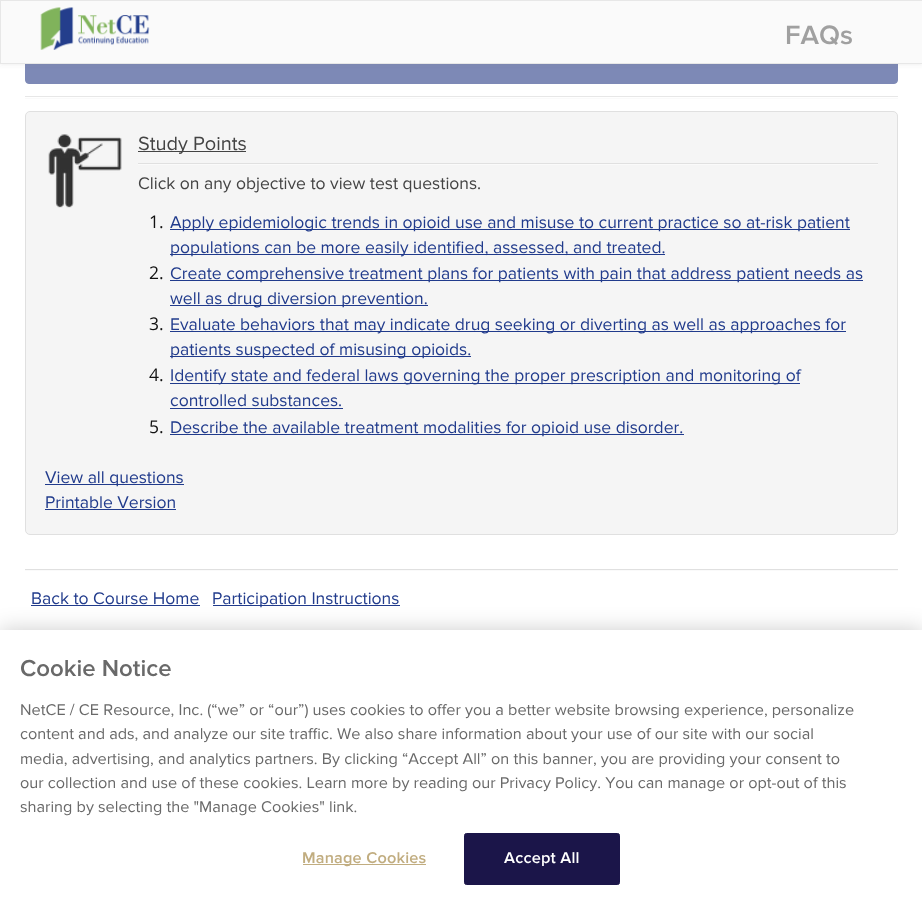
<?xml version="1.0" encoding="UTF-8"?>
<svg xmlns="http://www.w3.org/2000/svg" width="922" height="904">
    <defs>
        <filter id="blur1" x="-50%" y="-200%" width="200%" height="500%"><feGaussianBlur stdDeviation="2"/></filter>
        <filter id="blur2" x="-50%" y="-200%" width="200%" height="500%"><feGaussianBlur stdDeviation="11"/></filter>
    </defs>
    <rect width="100%" height="100%" fill="#FFFFFF"/>
    <rect x="25.5" y="34.5" width="872" height="49" rx="3.5" fill="#7D89B6" stroke="#7D89B6"/>
    <rect x="0" y="1" width="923" height="64" fill="#707070" fill-opacity="0.1" filter="url(#blur1)"/>
    <rect x="0.5" y="0.5" width="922" height="63" fill="#FAFAFA" stroke="#E7E7E7"/>
    <image x="40" y="7" width="110" height="43" href="img_01.png"/>
    <text x="785" y="44" font-family="Proxima Nova" font-size="27.5" font-weight="600" fill="#A0A0A0">FAQs</text>
    <rect x="25" y="96" width="873" height="1" fill="#E7E7E7"/>
    <rect x="25" y="98" width="873" height="1" fill="#FAFAFA"/>
    <rect x="25.5" y="111.5" width="872" height="423" rx="4.5" fill="#F5F5F5" stroke="#E0E0E0"/>
    <image x="48" y="134" width="74" height="74" href="img_02.png"/>
    <rect x="138" y="151" width="108" height="1" fill="#444444"/>
    <text x="138" y="150" font-family="Proxima Nova" font-size="20" fill="#444444">Study Points</text>
    <rect x="138" y="163" width="740" height="1" fill="#E0E0E0"/>
    <rect x="138" y="164" width="740" height="1" fill="#FAFAFA"/>
    <text x="138" y="189" font-family="Proxima Nova" font-size="17.5" fill="#444444">Click on any objective to view test questions.</text>
    <text x="149" y="228" font-family="Open Sans" font-size="17.5" fill="#111111">1.</text>
    <rect x="170" y="229" width="680" height="1" fill="#213B8C"/>
    <text x="170" y="228" font-family="Proxima Nova" font-size="17.5" fill="#213B8C">Apply epidemiologic trends in opioid use and misuse to current practice so at-risk patient</text>
    <rect x="170" y="254" width="495" height="1" fill="#213B8C"/>
    <text x="170" y="253" font-family="Proxima Nova" font-size="17.5" fill="#213B8C">populations can be more easily identified, assessed, and treated.</text>
    <text x="149" y="279" font-family="Open Sans" font-size="17.5" fill="#111111">2.</text>
    <rect x="170" y="280" width="693" height="1" fill="#213B8C"/>
    <text x="170" y="279" font-family="Proxima Nova" font-size="17.5" fill="#213B8C">Create comprehensive treatment plans for patients with pain that address patient needs as</text>
    <rect x="170" y="305" width="258" height="1" fill="#213B8C"/>
    <text x="170" y="304" font-family="Proxima Nova" font-size="17.5" fill="#213B8C">well as drug diversion prevention.</text>
    <text x="149" y="330" font-family="Open Sans" font-size="17.5" fill="#111111">3.</text>
    <rect x="170" y="331" width="676" height="1" fill="#213B8C"/>
    <text x="170" y="330" font-family="Proxima Nova" font-size="17.5" fill="#213B8C">Evaluate behaviors that may indicate drug seeking or diverting as well as approaches for</text>
    <rect x="170" y="356" width="301" height="1" fill="#213B8C"/>
    <text x="170" y="355" font-family="Proxima Nova" font-size="17.5" fill="#213B8C">patients suspected of misusing opioids.</text>
    <text x="149" y="381" font-family="Open Sans" font-size="17.5" fill="#111111">4.</text>
    <rect x="170" y="383" width="630" height="1" fill="#213B8C"/>
    <text font-family="Proxima Nova" font-size="17.5" fill="#213B8C">
        <tspan x="170" y="381">Identify state and federal laws governing the proper prescription and monitoring of</tspan>
        <tspan x="170" y="406">controlled substances.</tspan>
    </text>
    <rect x="170" y="408" width="173" height="1" fill="#213B8C"/>
    <text x="149" y="433" font-family="Open Sans" font-size="17.5" fill="#111111">5.</text>
    <rect x="170" y="434" width="514" height="1" fill="#213B8C"/>
    <text x="170" y="433" font-family="Proxima Nova" font-size="17.5" fill="#213B8C">Describe the available treatment modalities for opioid use disorder.</text>
    <rect x="45" y="484" width="139" height="1" fill="#213B8C"/>
    <text font-family="Proxima Nova" font-size="17.5" fill="#213B8C">
        <tspan x="45" y="483">View all questions</tspan>
        <tspan x="45" y="508">Printable Version</tspan>
    </text>
    <rect x="45" y="509" width="131" height="1" fill="#213B8C"/>
    <rect x="25" y="569" width="873" height="1" fill="#E0E0E0"/>
    <rect x="25" y="570" width="873" height="1" fill="#FAFAFA"/>
    <text x="31" y="604" font-family="Proxima Nova" font-size="17.5" fill="#213B8C">Back to Course Home</text>
    <rect x="31" y="605" width="169" height="1" fill="#213B8C"/>
    <rect x="213" y="605" width="187" height="1" fill="#213B8C"/>
    <text x="212" y="604" font-family="Proxima Nova" font-size="17.5" fill="#213B8C">Participation Instructions</text>
    <rect x="0" y="630" width="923" height="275" fill="#000000" fill-opacity="0.2" filter="url(#blur2)"/>
    <rect x="0" y="630" width="922" height="274" fill="#FFFFFF"/>
    <text x="20" y="676" font-family="Proxima Nova" font-size="24" font-weight="600" fill="#696969">Cookie Notice</text>
    <text font-family="Proxima Nova" font-size="16.25" fill="#696969">
        <tspan x="20" y="715">NetCE / CE Resource, Inc. (“we” or “our”) uses cookies to offer you a better website browsing experience, personalize</tspan>
        <tspan x="20" y="739">content and ads, and analyze our site traffic. We also share information about your use of our site with our social</tspan>
        <tspan x="20" y="764">media, advertising, and analytics partners. By clicking “Accept All” on this banner, you are providing your consent to</tspan>
        <tspan x="20" y="788">our collection and use of these cookies. Learn more by reading our Privacy Policy. You can manage or opt-out of this</tspan>
        <tspan x="20" y="812">sharing by selecting the "Manage Cookies" link.</tspan>
    </text>
    <rect x="303" y="864" width="123" height="1" fill="#C1AD80"/>
    <text x="302" y="863" font-family="Proxima Nova" font-size="16.25" font-weight="600" letter-spacing="0.2" fill="#C1AD80">Manage Cookies</text>
    <rect x="464.5" y="833.5" width="155" height="51" rx="2" fill="#1B1549" stroke="#1B1549"/>
    <text x="504" y="863" font-family="Proxima Nova" font-size="16.25" font-weight="600" letter-spacing="0.2" fill="#FFFFFF">Accept All</text>
</svg>
